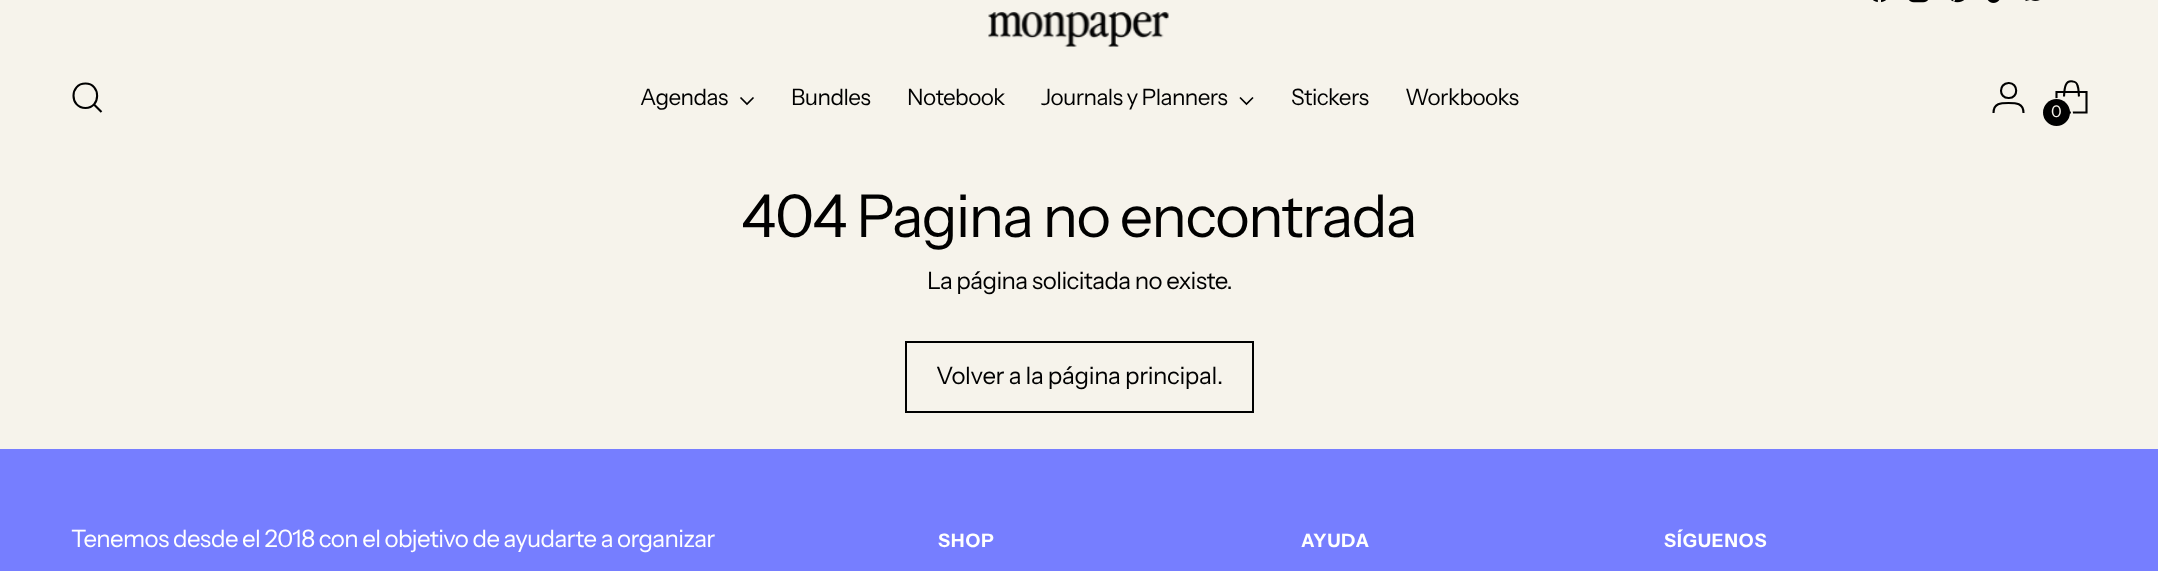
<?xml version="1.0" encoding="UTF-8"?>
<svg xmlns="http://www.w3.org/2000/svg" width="2158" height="571">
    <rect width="100%" height="100%" fill="#F6F3EB"/>
    <image x="1873" y="0" width="13" height="3" href="img_01.png"/>
    <image x="1909" y="0" width="19" height="3" href="img_02.png"/>
    <image x="1951" y="0" width="13" height="3" href="img_03.png"/>
    <image x="1987" y="0" width="13" height="3" href="img_04.png"/>
    <image x="2025" y="0" width="15" height="2" href="img_05.png"/>
    <image x="988" y="12" width="181" height="35" href="img_06.png"/>
    <path d="M 85.5 108 C 101 108 101 83.5 85.5 83.5 C 69.5 83.5 69.5 108 85.5 108 Z" fill="none" stroke="#000000" stroke-width="2.1" stroke-linecap="round"/>
    <path d="M 94 104.5 L 101.5 112" fill="none" stroke="#000000" stroke-width="2.1"/>
    <text x="640" y="105" font-family="Instrument Sans" font-size="22.5" letter-spacing="-0.6" fill="#000000">Agendas</text>
    <path d="M 740.5 97.5 L 747 104 L 753.5 97.5" fill="none" stroke="#000000" stroke-width="1.7"/>
    <text x="791" y="105" font-family="Instrument Sans" font-size="22.5" letter-spacing="-0.6" fill="#000000">Bundles</text>
    <text x="907" y="105" font-family="Instrument Sans" font-size="22.5" letter-spacing="-0.6" fill="#000000">Notebook</text>
    <text x="1041" y="105" font-family="Instrument Sans" font-size="22.5" letter-spacing="-0.6" fill="#000000">Journals y Planners</text>
    <path d="M 1240 97.5 L 1246.5 104 L 1253 97.5" fill="none" stroke="#000000" stroke-width="1.7"/>
    <text x="1291" y="105" font-family="Instrument Sans" font-size="22.5" letter-spacing="-0.6" fill="#000000">Stickers</text>
    <text x="1405" y="105" font-family="Instrument Sans" font-size="22.5" letter-spacing="-0.6" fill="#000000">Workbooks</text>
    <path d="M 2008.5 98 C 2019 98.5 2018.5 82.5 2008.5 83 C 1998.5 83.5 1998.5 98 2008.5 98 Z M 1993.5 113 C 1993.5 103 2001 103 2008.5 103 C 2016 103 2023.5 103 2023.5 113" fill="none" stroke="#000000" stroke-width="2.1"/>
    <path d="M 2079 96.5 C 2078.5 93 2079 89 2077.5 85.5 C 2077 83.5 2075 81.5 2073 81.5 C 2064 79.5 2064.5 91 2064 96.5" fill="none" stroke="#000000" stroke-width="2.1" stroke-linejoin="bevel"/>
    <path d="M 2086.5 112.5 V 92 H 2056.5 V 112.5 Z" fill="none" stroke="#000000" stroke-width="2.1"/>
    <circle cx="2057.5" cy="113.5" r="14.5" fill="none" stroke="#F6F3EB" stroke-width="2"/>
    <circle cx="2056.5" cy="112.5" r="13.5" fill="#000000"/>
    <text x="2051" y="117" font-family="Instrument Sans" font-size="16" letter-spacing="-0.6" fill="#F6F3EB">0</text>
    <text x="741" y="237" font-family="Instrument Sans" font-size="59" letter-spacing="-1.5" fill="#000000">404 Pagina no encontrada</text>
    <text x="927" y="289" font-family="Instrument Sans" font-size="24" letter-spacing="-0.6" fill="#000000">La página solicitada no existe.</text>
    <rect x="906" y="342" width="347" height="70" fill="none" stroke="#000000" stroke-width="2"/>
    <text x="936" y="384" font-family="Instrument Sans" font-size="24" letter-spacing="-0.35" fill="#000000">Volver a la página principal.</text>
    <rect x="0" y="449" width="2158" height="122" fill="#767EFF"/>
    <text x="71" y="547" font-family="Instrument Sans" font-size="24" letter-spacing="-0.6" fill="#FFFFFF">Tenemos desde el 2018 con el objetivo de ayudarte a organizar</text>
    <text x="938" y="547" font-family="Instrument Sans" font-size="18.5" font-weight="700" letter-spacing="1" fill="#FFFFFF">SHOP</text>
    <text x="1301" y="547" font-family="Instrument Sans" font-size="18.5" font-weight="700" letter-spacing="1" fill="#FFFFFF">AYUDA</text>
    <text x="1664" y="547" font-family="Instrument Sans" font-size="18.5" font-weight="700" letter-spacing="1" fill="#FFFFFF">SÍGUENOS</text>
</svg>
